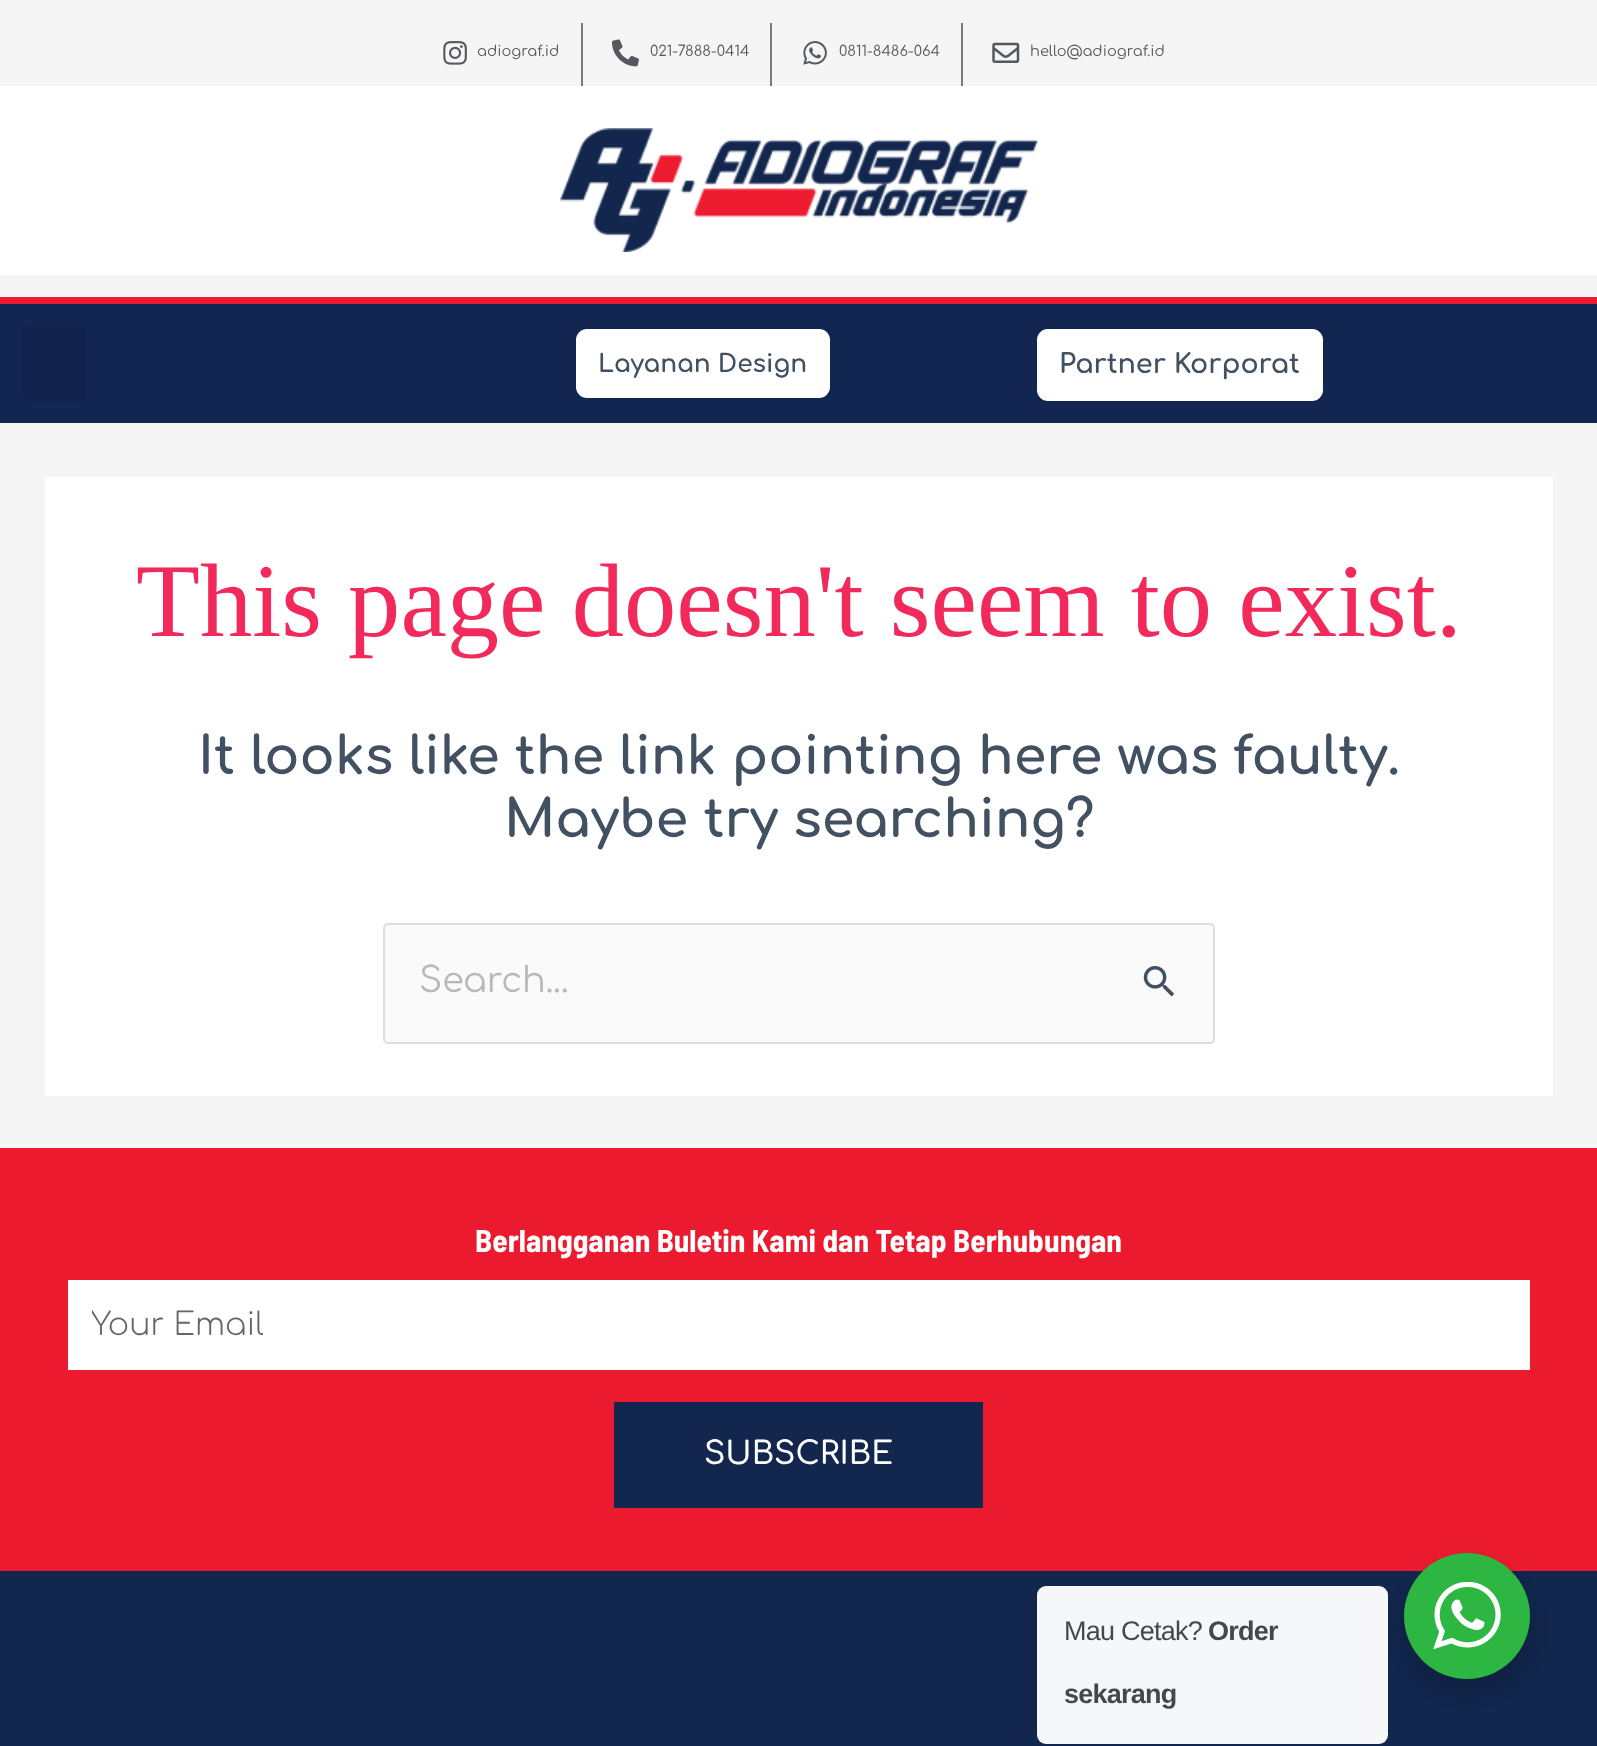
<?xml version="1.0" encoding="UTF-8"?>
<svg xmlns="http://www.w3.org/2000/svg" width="1597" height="1746">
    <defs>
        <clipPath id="clip1"><rect x="92" y="1307" width="1416" height="34"/></clipPath>
        <filter id="blur1" x="-50%" y="-200%" width="200%" height="500%"><feGaussianBlur stdDeviation="9"/></filter>
    </defs>
    <rect width="100%" height="100%" fill="#F5F5F5"/>
    <image x="443" y="41" width="24" height="24" href="img_01.png"/>
    <text x="477" y="56" font-family="Comfortaa" font-size="14.6" fill="#54595F">adiograf.id</text>
    <rect x="581" y="23" width="2" height="63" fill="#7A7A7A"/>
    <image x="612" y="39" width="27" height="28" href="img_02.png"/>
    <text x="650" y="56" font-family="Comfortaa" font-size="14.6" fill="#54595F">021-7888-0414</text>
    <rect x="770" y="23" width="2" height="63" fill="#7A7A7A"/>
    <image x="803" y="41" width="24" height="24" href="img_03.png"/>
    <text x="839" y="56" font-family="Comfortaa" font-size="14.6" fill="#54595F">0811-8486-064</text>
    <rect x="961" y="23" width="2" height="63" fill="#7A7A7A"/>
    <image x="992" y="42" width="28" height="21" href="img_04.png"/>
    <text x="1030" y="56" font-family="Comfortaa" font-size="14.6" fill="#54595F">hello@adiograf.id</text>
    <rect x="0" y="86" width="1597" height="189" fill="#FFFFFF"/>
    <image x="560" y="128" width="478" height="124" href="img_05.png"/>
    <rect x="0" y="304" width="1597" height="119" fill="#132651"/>
    <rect x="0" y="297" width="1597" height="7" fill="#EC1A2F"/>
    <rect x="23" y="326" width="63" height="75" rx="7" fill="#12244D"/>
    <rect x="576" y="329" width="254" height="69" rx="11" fill="#FFFFFF"/>
    <text x="598" y="372" font-family="Comfortaa" font-size="24.75" font-weight="700" fill="#415161">Layanan Design</text>
    <rect x="1037" y="329" width="286" height="72" rx="11" fill="#FFFFFF"/>
    <text x="1059" y="373" font-family="Comfortaa" font-size="27" font-weight="700" fill="#415161">Partner Korporat</text>
    <rect x="45" y="477" width="1508" height="619" fill="#FFFFFF"/>
    <text x="136" y="636" font-family="Liberation Serif" font-size="104.6" fill="#F2295B">This page doesn't seem to exist.</text>
    <text x="198" y="774" font-family="Comfortaa" font-size="52.3" font-weight="700" fill="#415161">It looks like the link pointing here was faulty.</text>
    <text x="504" y="837" font-family="Comfortaa" font-size="52.3" font-weight="700" fill="#415161">Maybe try searching?</text>
    <rect x="384" y="924" width="830" height="119" rx="4" fill="#FAFAFA" stroke="#DDDDDD" stroke-width="2"/>
    <text x="419" y="992" font-family="Comfortaa" font-size="35" fill="#B8B8B8">Search...</text>
    <image x="1143" y="966" width="32" height="31" href="img_06.png"/>
    <rect x="0" y="1148" width="1597" height="423" fill="#EC1A2F"/>
    <text x="475" y="1252" font-family="Barlow Semi Condensed" font-size="31.5" font-weight="700" fill="#FFFFFF">Berlangganan Buletin Kami dan Tetap Berhubungan</text>
    <rect x="68" y="1280" width="1462" height="90" fill="#FFFFFF"/>
    <g clip-path="url(#clip1)">
        <text x="91" y="1335" font-family="Comfortaa" font-size="31.5" font-weight="300" fill="#666666">Your Email</text>
    </g>
    <rect x="614" y="1402" width="369" height="106" fill="#12264E"/>
    <text x="704" y="1464" font-family="Comfortaa" font-size="31.5" font-weight="600" fill="#FFFFFF">SUBSCRIBE</text>
    <rect x="0" y="1571" width="1597" height="175" fill="#12264E"/>
    <rect x="1400" y="1562" width="135" height="135" rx="67.5" fill="#000000" fill-opacity="0.14" filter="url(#blur1)"/>
    <rect x="1037" y="1586" width="351" height="158" rx="9" fill="#F5F7F9"/>
    <text x="1064" y="1640" font-family="Liberation Sans" font-size="27" letter-spacing="-0.75" fill="#43474E">Mau Cetak?</text>
    <text x="1208" y="1640" font-family="Liberation Sans" font-size="27" font-weight="700" letter-spacing="-0.75" fill="#43474E">Order</text>
    <text x="1064" y="1703" font-family="Liberation Sans" font-size="27" font-weight="700" letter-spacing="-0.75" fill="#43474E">sekarang</text>
    <circle cx="1467" cy="1616" r="63" fill="#2DB742"/>
    <image x="1433" y="1582" width="68" height="67" href="img_07.png"/>
</svg>
